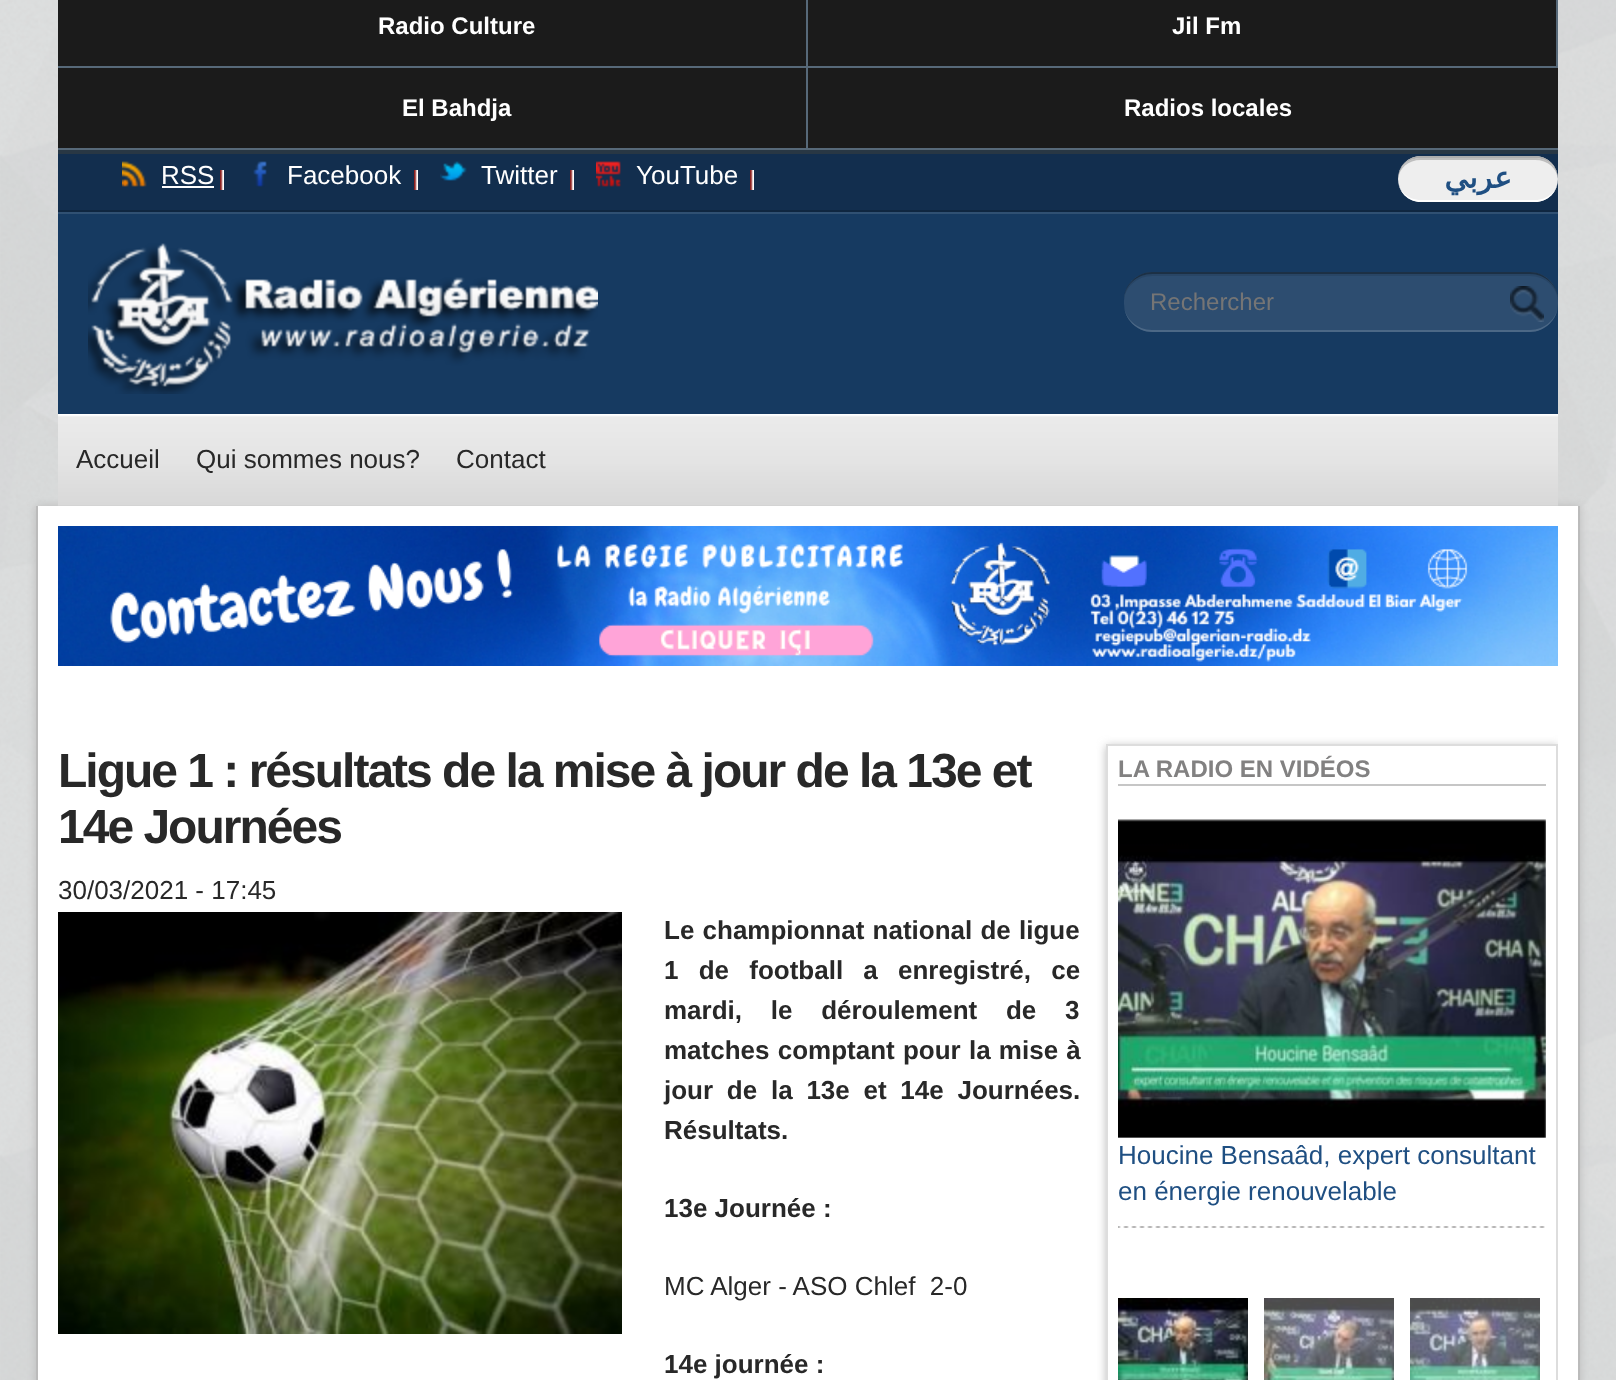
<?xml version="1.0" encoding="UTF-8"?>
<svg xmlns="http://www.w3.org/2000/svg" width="1616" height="1380">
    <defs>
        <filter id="blur1" x="-50%" y="-200%" width="200%" height="500%"><feGaussianBlur stdDeviation="5"/></filter>
        <clipPath id="clip1"><rect x="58" y="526" width="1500" height="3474"/></clipPath>
        <clipPath id="clip2"><path d="M 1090 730 H 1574 V 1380 H 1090 Z M 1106 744 H 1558 V 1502 H 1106 Z" clip-rule="evenodd"/></clipPath>
    </defs>
    <rect width="100%" height="100%" fill="#FFFFFF"/>
    <image x="0" y="0" width="1616" height="1380" href="img_01.png"/>
    <rect x="58" y="0" width="1500" height="148" fill="#1B1B1B"/>
    <rect x="58" y="150" width="1500" height="4" fill="#283744"/>
    <rect x="806" y="0" width="2" height="150" fill="#576979"/>
    <rect x="58" y="66" width="750" height="2" fill="#576979"/>
    <text x="378" y="34" font-family="Liberation Sans" font-size="24" font-weight="700" fill="#FFFFFF">Radio Culture</text>
    <rect x="1556" y="0" width="2" height="68" fill="#576979"/>
    <rect x="808" y="66" width="750" height="2" fill="#576979"/>
    <text x="1172" y="34" font-family="Liberation Sans" font-size="24" font-weight="700" fill="#FFFFFF">Jil Fm</text>
    <rect x="58" y="148" width="1500" height="2" fill="#576979"/>
    <text x="402" y="116" font-family="Liberation Sans" font-size="24" font-weight="700" fill="#FFFFFF">El Bahdja</text>
    <text x="1124" y="116" font-family="Liberation Sans" font-size="24" font-weight="700" fill="#FFFFFF">Radios locales</text>
    <rect x="58" y="154" width="1500" height="56" fill="#122E4E"/>
    <rect x="58" y="210" width="1500" height="2" fill="#0F2640"/>
    <image x="220" y="170" width="4" height="20" href="img_02.png"/>
    <image x="122" y="161" width="25" height="26" href="img_03.png"/>
    <text x="161" y="184" font-family="Liberation Sans" font-size="26" fill="#FFFFFF">RSS</text>
    <rect x="162" y="186" width="52" height="2" fill="#FFFFFF"/>
    <image x="414" y="170" width="4" height="20" href="img_02.png"/>
    <image x="253" y="161" width="14" height="26" href="img_04.png"/>
    <text x="287" y="184" font-family="Liberation Sans" font-size="26" fill="#FFFFFF">Facebook</text>
    <image x="570" y="170" width="4" height="20" href="img_02.png"/>
    <image x="440" y="161" width="27" height="20" href="img_05.png"/>
    <text x="481" y="184" font-family="Liberation Sans" font-size="26" fill="#FFFFFF">Twitter</text>
    <image x="750" y="170" width="4" height="20" href="img_02.png"/>
    <image x="596" y="161" width="25" height="26" href="img_06.png"/>
    <text x="636" y="184" font-family="Liberation Sans" font-size="26" fill="#FFFFFF">YouTube</text>
    <rect x="1398" y="156" width="160" height="46" rx="23" fill="#EEEEEE"/>
    <path d="M 1421 160 H 1535 C 1548 160 1557 168 1558 180 V 179 C 1558 167 1548 158 1535 158 H 1421 C 1408 158 1398 167 1398 179 V 180 C 1399 168 1408 160 1421 160 Z" fill="#000000" fill-opacity="0.2"/>
    <path d="M 1421 156 C 1408 156 1398 166 1398 179 C 1398 167 1408 158 1421 158 H 1535 C 1548 158 1558 167 1558 179 C 1558 166 1548 156 1535 156 Z" fill="#ADADAD"/>
    <path d="M 1421 202 H 1535 C 1548 202 1558 192 1558 179 C 1558 191 1548 200 1535 200 H 1421 C 1408 200 1398 191 1398 179 C 1398 192 1408 202 1421 202 Z" fill="#FFFFFF"/>
    <text x="1512" y="188" font-family="DejaVu Sans" font-size="30" font-weight="700" direction="rtl" fill="#1F4F82">عربي</text>
    <rect x="58" y="214" width="1500" height="200" fill="#163A61"/>
    <rect x="58" y="212" width="1500" height="2" fill="#305072"/>
    <image x="88" y="243" width="510" height="151" href="img_07.png"/>
    <rect x="1124" y="272" width="434" height="60" rx="28" fill="#2D4D70"/>
    <path d="M 1152 276 H 1530 C 1545 276 1558 288 1558 302 V 300 C 1558 286 1545 274 1530 274 H 1152 C 1137 274 1124 286 1124 300 V 302 C 1124 288 1137 276 1152 276 Z" fill="#284565"/>
    <path d="M 1152 272 C 1137 272 1124 285 1124 300 C 1124 286 1137 274 1152 274 H 1530 C 1545 274 1558 286 1558 300 C 1558 285 1545 272 1530 272 Z" fill="#1C3045"/>
    <path d="M 1530 332 C 1545 332 1558 319 1558 304 C 1558 318 1545 330 1530 330 H 1152 C 1137 330 1124 318 1124 304 C 1124 319 1137 332 1152 332 Z" fill="#4C6886"/>
    <text x="1150" y="310" font-family="Liberation Sans" font-size="24" fill="#757575">Rechercher</text>
    <image x="1510" y="286" width="34" height="36" href="img_08.png"/>
    <rect x="36" y="506" width="1544" height="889" fill="#BBBBBB" filter="url(#blur1)"/>
    <image x="58" y="414" width="1500" height="92" href="img_09.png"/>
    <text x="76" y="468" font-family="Liberation Sans" font-size="26" fill="#282828">Accueil</text>
    <text x="196" y="468" font-family="Liberation Sans" font-size="26" fill="#282828">Qui sommes nous?</text>
    <text x="456" y="468" font-family="Liberation Sans" font-size="26" fill="#282828">Contact</text>
    <rect x="38" y="506" width="1540" height="874" fill="#FFFFFF"/>
    <rect x="1578" y="506" width="2" height="874" fill="#BBBBBB"/>
    <rect x="36" y="506" width="2" height="874" fill="#BBBBBB"/>
    <image x="58" y="526" width="1500" height="140" href="img_10.png"/>
    <text font-family="Liberation Sans" font-size="48" font-weight="700" letter-spacing="-2" fill="#282828">
        <tspan x="58" y="787">Ligue 1 : résultats de la mise à jour de la 13e et</tspan>
        <tspan x="58" y="843">14e Journées</tspan>
    </text>
    <text x="58" y="899" font-family="Liberation Sans" font-size="26" fill="#282828">30/03/2021 - 17:45</text>
    <image x="58" y="912" width="564" height="422" href="img_11.png"/>
    <text font-family="Liberation Sans" font-size="26" font-weight="700" fill="#282828">
        <tspan x="664" y="939" word-spacing="1">Le championnat national de ligue</tspan>
        <tspan x="664" y="979" word-spacing="13">1 de football a enregistré, ce</tspan>
        <tspan x="664" y="1019" word-spacing="21.5">mardi, le déroulement de 3</tspan>
        <tspan x="664" y="1059" word-spacing="1">matches comptant pour la mise à</tspan>
        <tspan x="664" y="1099" word-spacing="6.5">jour de</tspan>
    </text>
    <text x="771" y="1099" word-spacing="6.5" font-family="Liberation Sans" font-size="26" font-weight="700" fill="#282828">la 13e et 14e Journées.</text>
    <text x="664" y="1139" font-family="Liberation Sans" font-size="26" font-weight="700" fill="#282828">Résultats.</text>
    <text x="664" y="1217" font-family="Liberation Sans" font-size="26" font-weight="700" fill="#282828">13e Journée :</text>
    <text x="664" y="1295" font-family="Liberation Sans" font-size="26" fill="#282828" xml:space="preserve">MC Alger - ASO Chlef  2-0</text>
    <text x="664" y="1373" font-family="Liberation Sans" font-size="26" font-weight="700" fill="#282828">14e journée :</text>
    <g clip-path="url(#clip1)">
        <g clip-path="url(#clip2)">
            <rect x="1106" y="746" width="452" height="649" fill="#BBBBBB" filter="url(#blur1)"/>
        </g>
    </g>
    <rect x="1106" y="744" width="452" height="2" fill="#DDDDDD"/>
    <path d="M 1558 744 V 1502 L 1556 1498 V 746 Z" fill="#DDDDDD"/>
    <path d="M 1106 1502 V 744 L 1108 746 V 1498 Z" fill="#DDDDDD"/>
    <rect x="1118" y="784" width="428" height="2" fill="#C6C6C6"/>
    <text x="1118" y="777" font-family="Liberation Sans" font-size="24" font-weight="700" fill="#828181">LA RADIO EN VIDÉOS</text>
    <image x="1118" y="1226" width="427" height="2" href="img_12.png"/>
    <image x="1118" y="819" width="428" height="319" href="img_13.png"/>
    <text font-family="Liberation Sans" font-size="26" fill="#1F4F82">
        <tspan x="1118" y="1164">Houcine Bensaâd, expert consultant</tspan>
        <tspan x="1118" y="1200">en énergie renouvelable</tspan>
    </text>
    <image x="1118" y="1298" width="130" height="82" href="img_14.png"/>
    <image x="1264" y="1298" width="130" height="82" href="img_15.png"/>
    <image x="1410" y="1298" width="130" height="82" href="img_16.png"/>
</svg>
